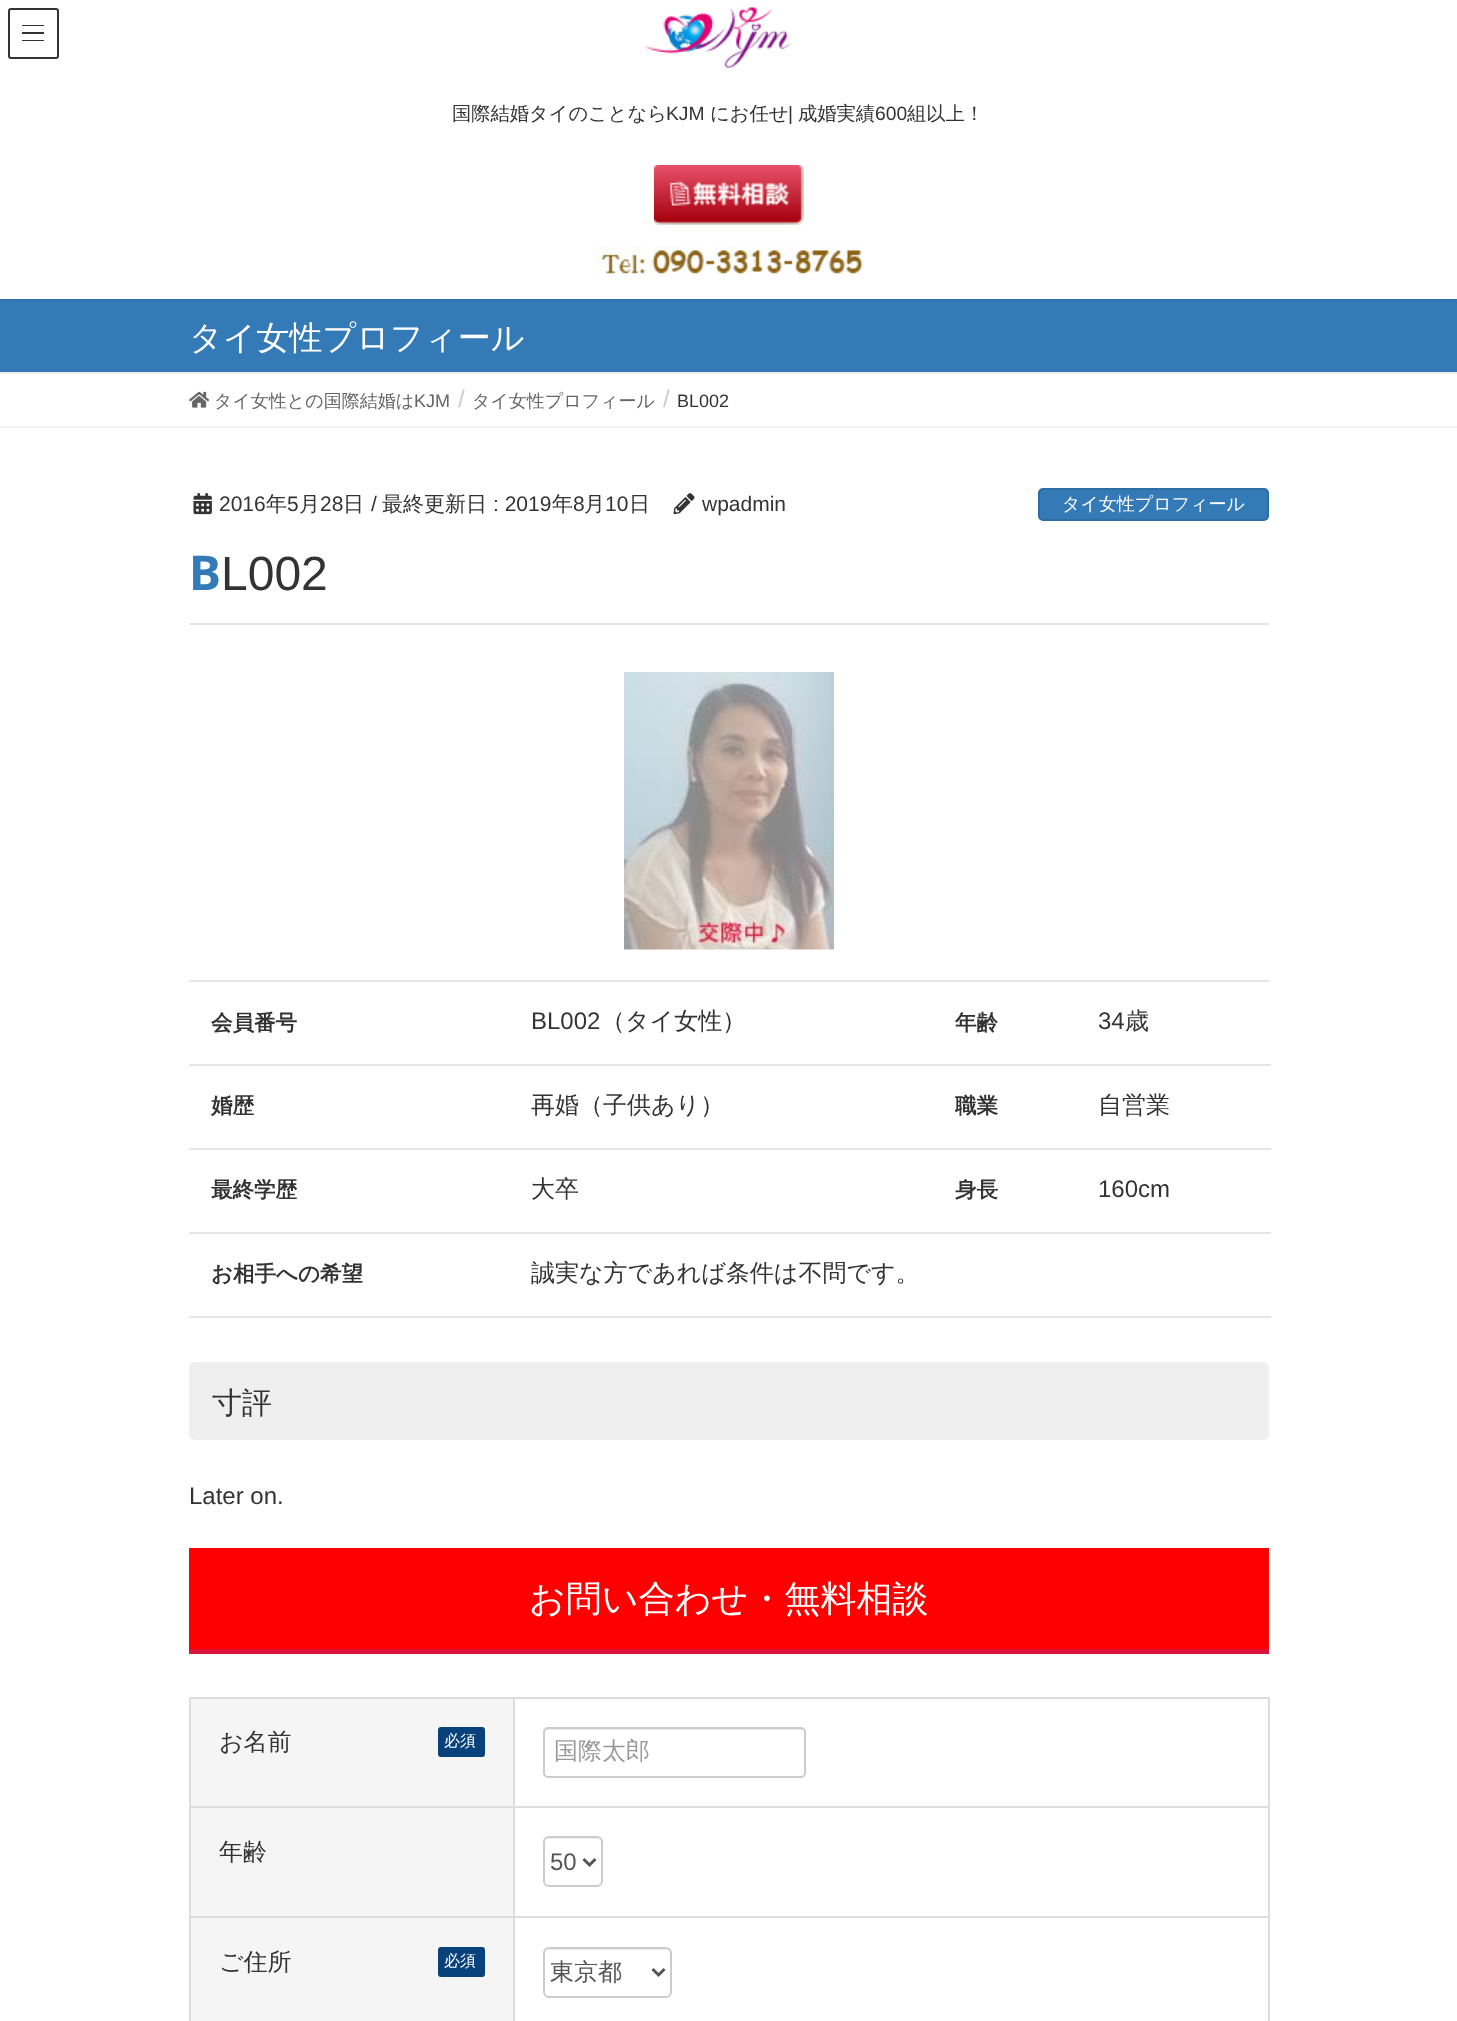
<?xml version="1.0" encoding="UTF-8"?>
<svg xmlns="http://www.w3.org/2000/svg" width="1457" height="2021">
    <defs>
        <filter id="blur1" x="-50%" y="-200%" width="200%" height="500%"><feGaussianBlur stdDeviation="2"/></filter>
    </defs>
    <rect width="100%" height="100%" fill="#FFFFFF"/>
    <rect x="0" y="299" width="1457" height="73" fill="#337AB7"/>
    <rect x="0" y="2" width="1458" height="298" fill="#000000" fill-opacity="0.1" filter="url(#blur1)"/>
    <rect x="0" y="0" width="1457" height="299" fill="#FFFFFF"/>
    <rect x="22" y="25" width="22" height="1" fill="#333333"/>
    <rect x="22" y="32" width="22" height="2" fill="#333333"/>
    <rect x="22" y="40" width="22" height="1" fill="#333333"/>
    <rect x="9" y="9" width="49" height="49" rx="2" fill="none" stroke="#333333" stroke-width="2"/>
    <image x="645" y="7" width="146" height="61" href="img_01.png"/>
    <text x="452" y="120" font-family="WenQuanYi Zen Hei" font-size="19.25" font-weight="500" fill="#333333">国際結婚タイのことなら</text>
    <text x="666" y="120" font-family="Liberation Sans" font-size="19.25" fill="#333333">KJM</text>
    <text x="710" y="120" font-family="WenQuanYi Zen Hei" font-size="19.25" font-weight="500" fill="#333333">にお任せ</text>
    <text x="788" y="120" font-family="Liberation Sans" font-size="19.25" fill="#333333">|</text>
    <text x="798" y="120" font-family="WenQuanYi Zen Hei" font-size="19.25" font-weight="500" fill="#333333">成婚実績</text>
    <text x="875" y="120" font-family="Liberation Sans" font-size="19.25" fill="#333333">600</text>
    <text x="907" y="120" font-family="WenQuanYi Zen Hei" font-size="19.25" font-weight="500" fill="#333333">組以上！</text>
    <image x="654" y="165" width="150" height="60" href="img_02.png"/>
    <image x="594" y="246" width="270" height="29" href="img_03.png"/>
    <rect x="0" y="372" width="1457" height="2" fill="#EEEEEE"/>
    <text x="189" y="349" font-family="WenQuanYi Zen Hei" font-size="33" font-weight="500" fill="#FFFFFF">タイ女性プロフィール</text>
    <rect x="0" y="426" width="1457" height="2" fill="#F3F3F3"/>
    <image x="189" y="391" width="21" height="17" href="img_04.png"/>
    <text x="214" y="407" font-family="WenQuanYi Zen Hei" font-size="18" font-weight="500" fill="#666666">タイ女性との国際結婚は</text>
    <text x="414" y="407" font-family="Liberation Sans" font-size="18" fill="#666666">KJM</text>
    <text x="458" y="407" font-family="Liberation Sans" font-size="24" fill="#CCCCCC">/</text>
    <text x="472" y="407" font-family="WenQuanYi Zen Hei" font-size="18" font-weight="500" fill="#666666">タイ女性プロフィール</text>
    <text x="663" y="407" font-family="Liberation Sans" font-size="24" fill="#CCCCCC">/</text>
    <text x="677" y="407" font-family="Liberation Sans" font-size="18" fill="#333333">BL002</text>
    <rect x="189" y="623" width="1080" height="2" fill="#E5E5E5"/>
    <image x="193" y="493" width="19" height="22" href="img_05.png"/>
    <text x="219" y="511" font-family="Liberation Sans" font-size="21" fill="#333333">2016</text>
    <text x="266" y="511" font-family="WenQuanYi Zen Hei" font-size="21" font-weight="500" fill="#333333">年</text>
    <text x="287" y="511" font-family="Liberation Sans" font-size="21" fill="#333333">5</text>
    <text x="299" y="511" font-family="WenQuanYi Zen Hei" font-size="21" font-weight="500" fill="#333333">月</text>
    <text x="320" y="511" font-family="Liberation Sans" font-size="21" fill="#333333">28</text>
    <text x="343" y="511" font-family="WenQuanYi Zen Hei" font-size="21" font-weight="500" fill="#333333">日</text>
    <text x="371" y="511" font-family="Liberation Sans" font-size="21" fill="#333333">/</text>
    <text x="382" y="511" font-family="WenQuanYi Zen Hei" font-size="21" font-weight="500" fill="#333333">最終更新日</text>
    <text x="493" y="511" font-family="Liberation Sans" font-size="21" fill="#333333">: 2019</text>
    <text x="552" y="511" font-family="WenQuanYi Zen Hei" font-size="21" font-weight="500" fill="#333333">年</text>
    <text x="573" y="511" font-family="Liberation Sans" font-size="21" fill="#333333">8</text>
    <text x="584" y="511" font-family="WenQuanYi Zen Hei" font-size="21" font-weight="500" fill="#333333">月</text>
    <text x="605" y="511" font-family="Liberation Sans" font-size="21" fill="#333333">10</text>
    <text x="629" y="511" font-family="WenQuanYi Zen Hei" font-size="21" font-weight="500" fill="#333333">日</text>
    <image x="673" y="493" width="22" height="22" href="img_06.png"/>
    <text x="702" y="511" font-family="Liberation Sans" font-size="21" fill="#333333">wpadmin</text>
    <rect x="1039" y="489" width="229" height="31" rx="4" fill="#337AB7" stroke="#2E6DA4" stroke-width="2"/>
    <text x="1062" y="510" font-family="WenQuanYi Zen Hei" font-size="18" font-weight="500" fill="#FFFFFF">タイ女性プロフィール</text>
    <text x="189" y="590" font-family="Noto Sans" font-size="48" font-weight="700" fill="#337AB7">B</text>
    <text x="221" y="590" font-family="Liberation Sans" font-size="48" fill="#333333">L002</text>
    <image x="624" y="672" width="210" height="278" href="img_07.png"/>
    <rect x="189" y="980" width="1080" height="2" fill="#E5E5E5"/>
    <text x="211" y="1030" font-family="WenQuanYi Zen Hei" font-size="21.5" font-weight="700" fill="#333333">会員番号</text>
    <text x="531" y="1029" font-family="Liberation Sans" font-size="24" fill="#333333">BL002</text>
    <text x="601" y="1029" font-family="WenQuanYi Zen Hei" font-size="24" font-weight="500" fill="#333333">（タイ女性）</text>
    <text x="955" y="1030" font-family="WenQuanYi Zen Hei" font-size="21.5" font-weight="700" fill="#333333">年齢</text>
    <rect x="189" y="1064" width="1082" height="2" fill="#E5E5E5"/>
    <text x="1098" y="1029" font-family="Liberation Sans" font-size="24" fill="#333333">34</text>
    <text x="1125" y="1029" font-family="WenQuanYi Zen Hei" font-size="24" font-weight="500" fill="#333333">歳</text>
    <text x="211" y="1113" font-family="WenQuanYi Zen Hei" font-size="21.5" font-weight="700" fill="#333333">婚歴</text>
    <text x="531" y="1113" font-family="WenQuanYi Zen Hei" font-size="24" font-weight="500" fill="#333333">再婚（子供あり）</text>
    <text x="955" y="1113" font-family="WenQuanYi Zen Hei" font-size="21.5" font-weight="700" fill="#333333">職業</text>
    <rect x="189" y="1148" width="1082" height="2" fill="#E5E5E5"/>
    <text x="1098" y="1113" font-family="WenQuanYi Zen Hei" font-size="24" font-weight="500" fill="#333333">自営業</text>
    <text x="211" y="1197" font-family="WenQuanYi Zen Hei" font-size="21.5" font-weight="700" fill="#333333">最終学歴</text>
    <text x="531" y="1197" font-family="WenQuanYi Zen Hei" font-size="24" font-weight="500" fill="#333333">大卒</text>
    <text x="955" y="1197" font-family="WenQuanYi Zen Hei" font-size="21.5" font-weight="700" fill="#333333">身長</text>
    <rect x="189" y="1232" width="1082" height="2" fill="#E5E5E5"/>
    <text x="1098" y="1197" font-family="Liberation Sans" font-size="24" fill="#333333">160cm</text>
    <text x="211" y="1281" font-family="WenQuanYi Zen Hei" font-size="21.5" font-weight="700" fill="#333333">お相手への希望</text>
    <rect x="189" y="1316" width="1082" height="2" fill="#E5E5E5"/>
    <text x="531" y="1281" font-family="WenQuanYi Zen Hei" font-size="24" font-weight="500" fill="#333333">誠実な方であれば条件は不問です。</text>
    <rect x="189" y="1362" width="1080" height="78" rx="6" fill="#EFEFEF"/>
    <text x="212" y="1413" font-family="WenQuanYi Zen Hei" font-size="30" font-weight="500" fill="#333333">寸評</text>
    <text x="189" y="1504" font-family="Liberation Sans" font-size="24" fill="#333333">Later on.</text>
    <rect x="189" y="1548" width="1080" height="101" fill="#FF0000"/>
    <rect x="189" y="1649" width="1080" height="5" fill="#DC143C"/>
    <text x="529" y="1611" font-family="WenQuanYi Zen Hei" font-size="36" font-weight="500" fill="#FFFFFF">お問い合わせ・無料相談</text>
    <rect x="189" y="1697" width="1080" height="2" fill="#DDDDDD"/>
    <rect x="1268" y="1697" width="2" height="324" fill="#DDDDDD"/>
    <rect x="189" y="1697" width="2" height="324" fill="#DDDDDD"/>
    <rect x="191" y="1699" width="322" height="107" fill="#F5F5F5"/>
    <text x="219" y="1750" font-family="WenQuanYi Zen Hei" font-size="24" font-weight="500" fill="#333333">お名前</text>
    <rect x="438" y="1727" width="47" height="30" rx="3" fill="#08427C"/>
    <text x="444" y="1746" font-family="WenQuanYi Zen Hei" font-size="16" font-weight="500" fill="#FFFFFF">必須</text>
    <rect x="513" y="1806" width="756" height="2" fill="#DDDDDD"/>
    <rect x="513" y="1916" width="756" height="2" fill="#DDDDDD"/>
    <rect x="513" y="1916" width="2" height="105" fill="#DDDDDD"/>
    <rect x="189" y="1916" width="326" height="2" fill="#DDDDDD"/>
    <rect x="513" y="1806" width="2" height="111" fill="#DDDDDD"/>
    <rect x="189" y="1806" width="326" height="2" fill="#DDDDDD"/>
    <rect x="513" y="1697" width="2" height="111" fill="#DDDDDD"/>
    <path d="M 548 1730 H 801 C 803 1730 804 1731 804 1732 C 804 1730 803 1728 801 1728 H 548 C 546 1728 545 1729 545 1731 Z" fill="#ECECEC"/>
    <rect x="544" y="1728" width="261" height="49" rx="4" fill="none" stroke="#CCCCCC" stroke-width="2"/>
    <text x="554" y="1759" font-family="WenQuanYi Zen Hei" font-size="24" font-weight="500" fill="#999999">国際太郎</text>
    <rect x="191" y="1808" width="322" height="108" fill="#F5F5F5"/>
    <text x="219" y="1860" font-family="WenQuanYi Zen Hei" font-size="24" font-weight="500" fill="#333333">年齢</text>
    <path d="M 549 1839 H 597 C 599 1839 602 1841 602 1844 V 1843 C 602 1840 600 1838 597 1838 H 550 C 548 1838 547 1839 546 1840 Z" fill="#ECECEC"/>
    <rect x="544" y="1837" width="58" height="49" rx="5" fill="none" stroke="#CCCCCC" stroke-width="2"/>
    <path d="M 583.5 1859 L 589.5 1865 L 595.5 1859" fill="none" stroke="#555555" stroke-width="3"/>
    <text x="550" y="1870" font-family="Liberation Sans" font-size="24" fill="#555555">50</text>
    <rect x="191" y="1918" width="322" height="103" fill="#F5F5F5"/>
    <text x="219" y="1970" font-family="WenQuanYi Zen Hei" font-size="24" font-weight="500" fill="#333333">ご住所</text>
    <rect x="438" y="1947" width="47" height="30" rx="3" fill="#08427C"/>
    <text x="444" y="1966" font-family="WenQuanYi Zen Hei" font-size="16" font-weight="500" fill="#FFFFFF">必須</text>
    <path d="M 549 1950 H 666 C 671 1950 670 1958 670 1961 V 1995 C 671 1994 671 1993 671 1992 V 1954 C 671 1951 669 1949 666 1949 H 550 C 548 1949 547 1950 546 1951 Z" fill="#ECECEC"/>
    <rect x="544" y="1948" width="127" height="49" rx="5" fill="none" stroke="#CCCCCC" stroke-width="2"/>
    <path d="M 652.5 1969 L 658.5 1975 L 664.5 1969" fill="none" stroke="#555555" stroke-width="3"/>
    <text x="550" y="1980" font-family="WenQuanYi Zen Hei" font-size="24" font-weight="500" fill="#555555">東京都</text>
</svg>
